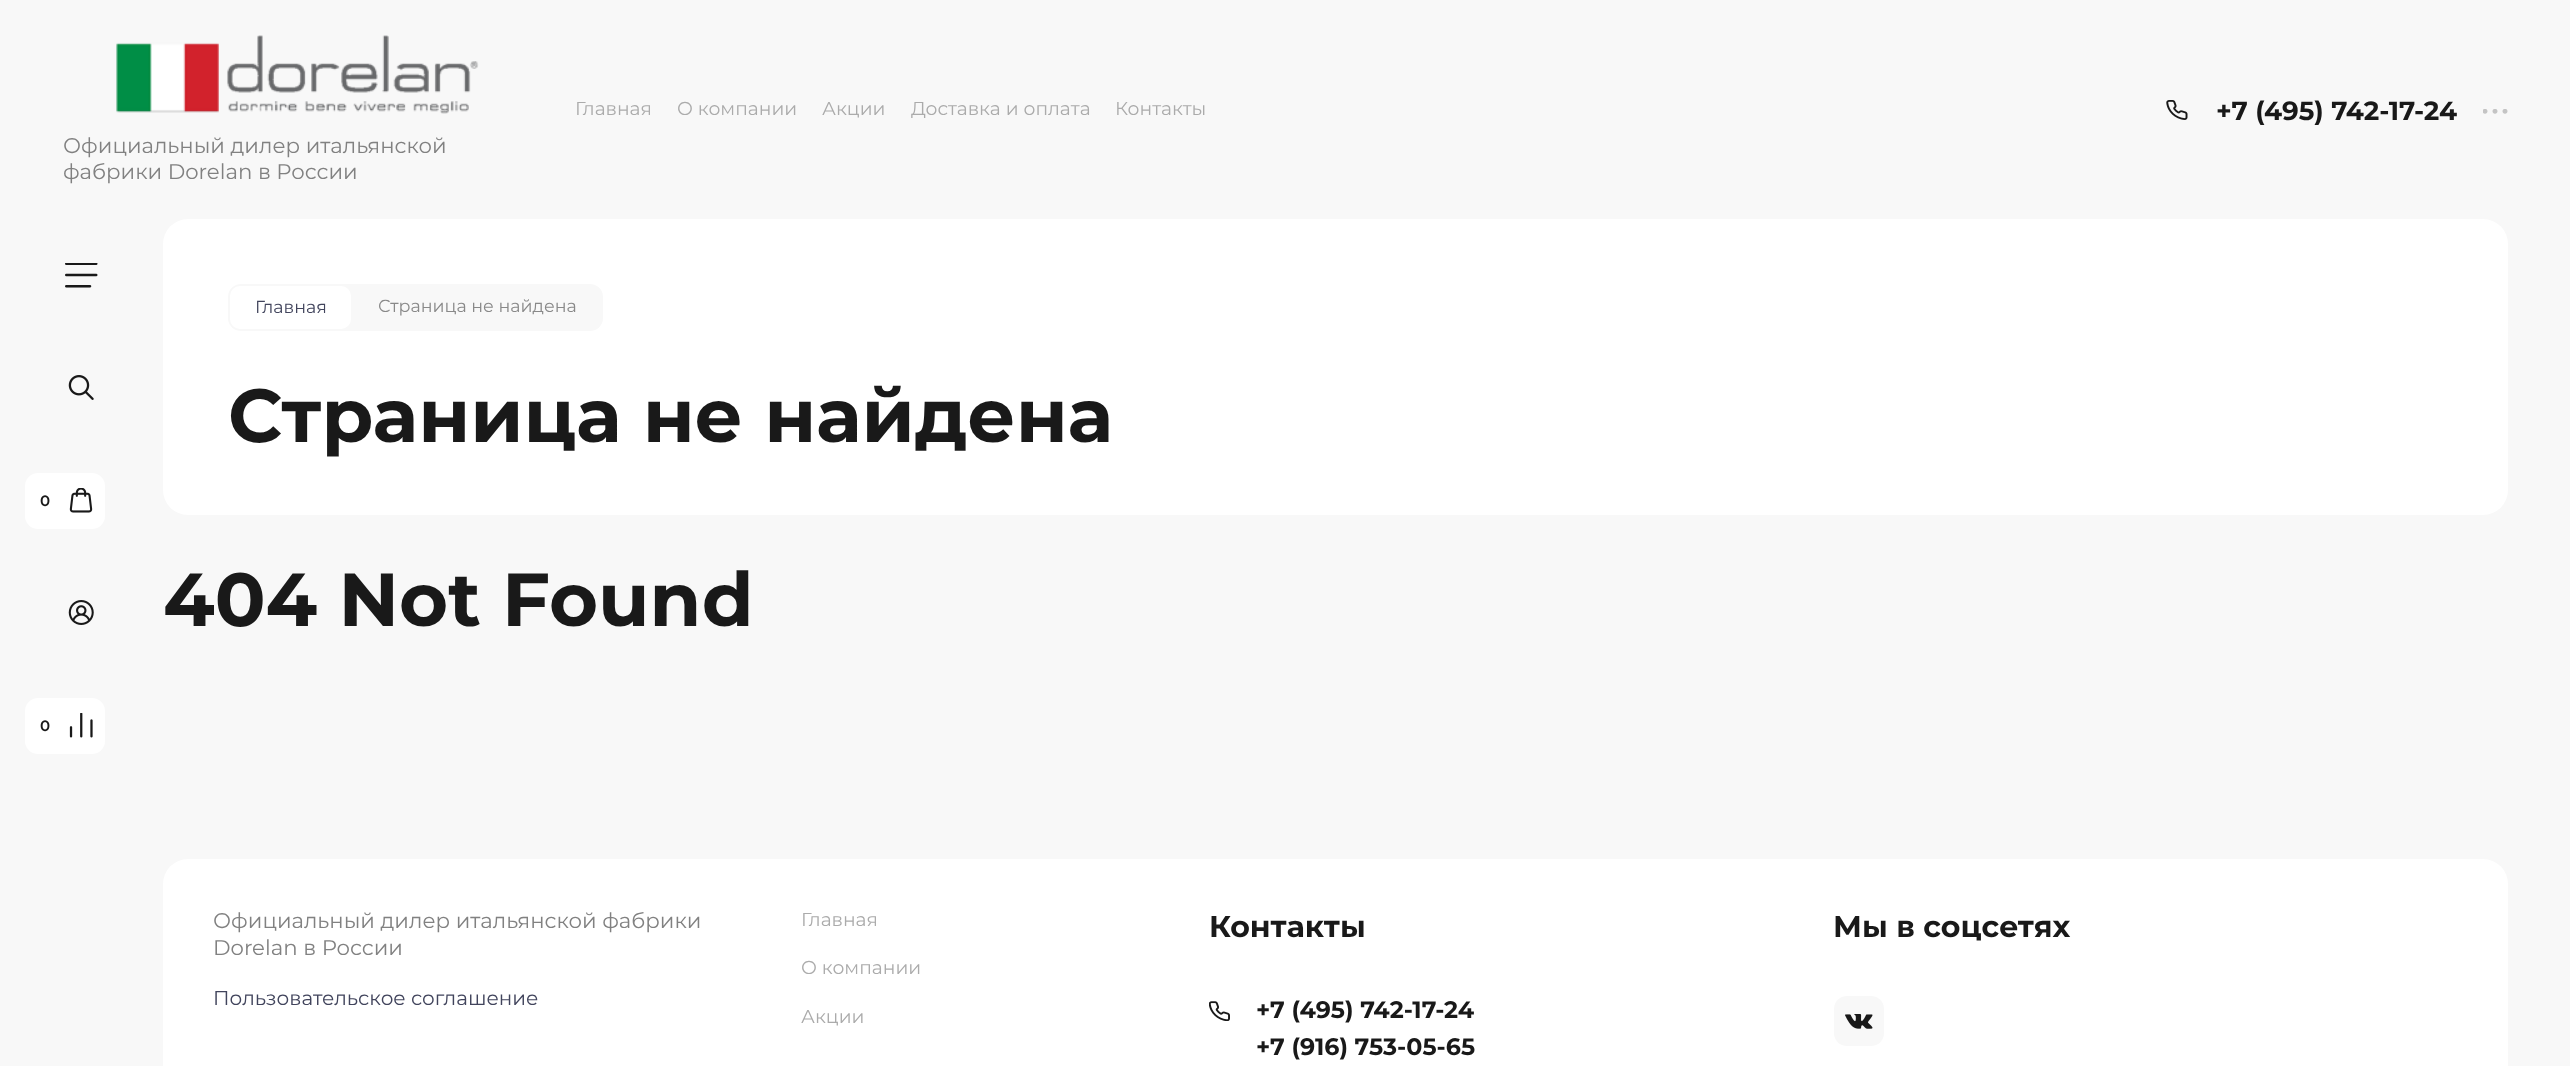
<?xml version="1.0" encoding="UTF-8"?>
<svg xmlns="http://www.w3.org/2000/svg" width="2570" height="1066">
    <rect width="100%" height="100%" fill="#F8F8F8"/>
    <text x="575" y="115" font-family="Montserrat" font-size="18.75" fill="#ABABAB">Главная</text>
    <text x="677" y="115" font-family="Montserrat" font-size="18.75" fill="#ABABAB">О компании</text>
    <text x="822" y="115" font-family="Montserrat" font-size="18.75" fill="#ABABAB">Акции</text>
    <text x="911" y="115" font-family="Montserrat" font-size="18.75" fill="#ABABAB">Доставка и оплата</text>
    <text x="1115" y="115" font-family="Montserrat" font-size="18.75" fill="#ABABAB">Контакты</text>
    <image x="2166" y="100" width="22" height="20" href="img_01.png"/>
    <text x="2216" y="120" font-family="Montserrat" font-size="26.25" font-weight="700" fill="#191919">+7 (495) 742-17-24</text>
    <image x="2483" y="109" width="25" height="5" href="img_02.png"/>
    <image x="116" y="35" width="363" height="79" href="img_03.png"/>
    <text font-family="Montserrat" font-size="21.25" fill="#818181">
        <tspan x="63" y="153">Официальный дилер итальянской</tspan>
        <tspan x="63" y="179">фабрики Dorelan в России</tspan>
    </text>
    <image x="65" y="263" width="33" height="25" href="img_04.png"/>
    <image x="68" y="375" width="26" height="25" href="img_05.png"/>
    <rect x="25" y="473" width="80" height="56" rx="13" fill="#FFFFFF"/>
    <text x="40" y="506" font-family="Montserrat" font-size="15" font-weight="600" fill="#191919">0</text>
    <image x="69" y="488" width="24" height="25" href="img_06.png"/>
    <image x="68" y="600" width="26" height="25" href="img_07.png"/>
    <rect x="25" y="698" width="80" height="56" rx="13" fill="#FFFFFF"/>
    <text x="40" y="731" font-family="Montserrat" font-size="15" font-weight="600" fill="#191919">0</text>
    <image x="69" y="713" width="24" height="25" href="img_08.png"/>
    <rect x="163" y="219" width="2345" height="296" rx="25" fill="#FFFFFF"/>
    <rect x="228" y="284" width="375" height="47" rx="13" fill="#F8F8F8"/>
    <rect x="230" y="286" width="121" height="43" rx="10" fill="#FFFFFF"/>
    <text x="255" y="313" font-family="Montserrat" font-size="17.5" fill="#41445C">Главная</text>
    <text x="378" y="312" font-family="Montserrat" font-size="17.5" fill="#898989">Страница не найдена</text>
    <text x="228" y="442" font-family="Montserrat" font-size="75" font-weight="700" fill="#191919">Страница не найдена</text>
    <text x="163" y="626" font-family="Montserrat" font-size="75" font-weight="700" fill="#191919">404 Not Found</text>
    <rect x="163" y="859" width="2345" height="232" rx="25" fill="#FFFFFF"/>
    <text font-family="Montserrat" font-size="21.25" fill="#818181">
        <tspan x="213" y="928">Официальный дилер итальянской фабрики</tspan>
        <tspan x="213" y="955">Dorelan в России</tspan>
    </text>
    <text x="213" y="1005" font-family="Montserrat" font-size="20" fill="#41445C">Пользовательское соглашение</text>
    <text x="801" y="926" font-family="Montserrat" font-size="18.75" fill="#ABABAB">Главная</text>
    <text x="801" y="974" font-family="Montserrat" font-size="18.75" fill="#ABABAB">О компании</text>
    <text x="801" y="1023" font-family="Montserrat" font-size="18.75" fill="#ABABAB">Акции</text>
    <text x="1209" y="937" font-family="Montserrat" font-size="30" font-weight="700" fill="#191919">Контакты</text>
    <image x="1209" y="1001" width="21" height="20" href="img_09.png"/>
    <text font-family="Montserrat" font-size="23.75" font-weight="700" fill="#191919">
        <tspan x="1256" y="1018">+7 (495) 742-17-24</tspan>
        <tspan x="1256" y="1055">+7 (916) 753-05-65</tspan>
    </text>
    <text x="1833" y="937" font-family="Montserrat" font-size="30" font-weight="700" fill="#191919">Мы в соцсетях</text>
    <rect x="1834" y="996" width="50" height="50" rx="13" fill="#F8F8F8"/>
    <image x="1845" y="1014" width="28" height="15" href="img_10.png"/>
</svg>
